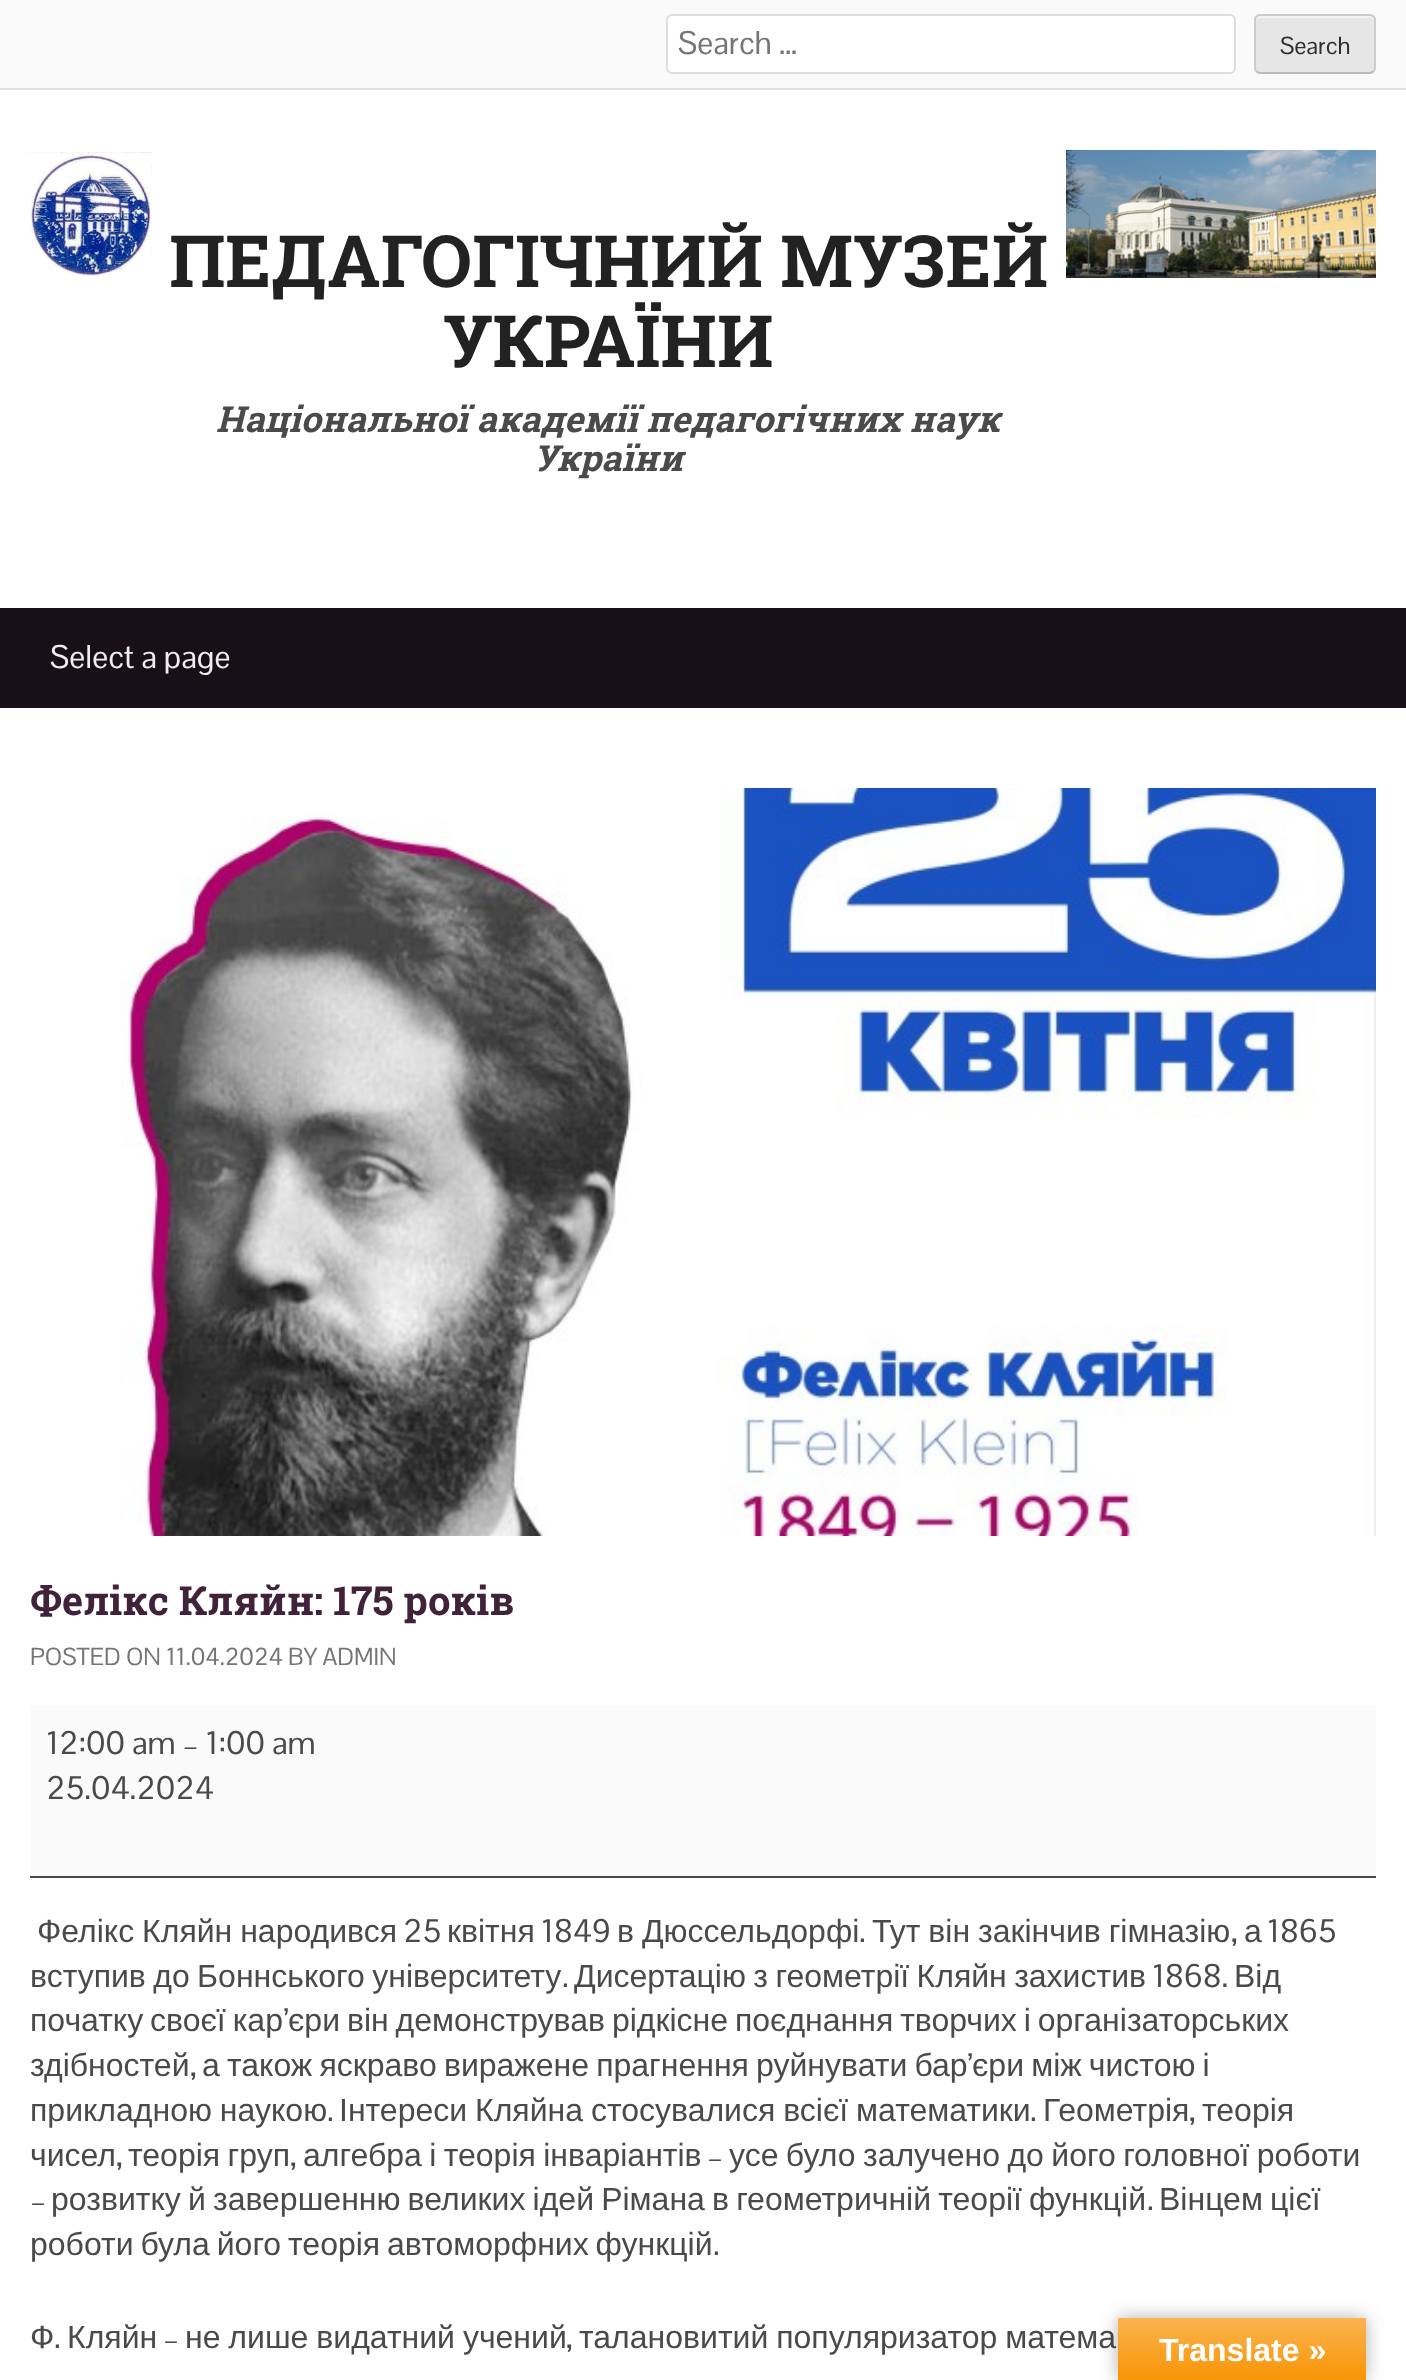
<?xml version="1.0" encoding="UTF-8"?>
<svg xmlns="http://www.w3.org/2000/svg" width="1406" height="2380">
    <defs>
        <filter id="blur1" x="-50%" y="-200%" width="200%" height="500%"><feGaussianBlur stdDeviation="9"/></filter>
        <linearGradient id="g1" gradientUnits="userSpaceOnUse" x1="1242" y1="2318" x2="1242" y2="2380"><stop offset="0" stop-color="#FBB450"/><stop offset="1" stop-color="#F89406"/></linearGradient>
    </defs>
    <rect width="100%" height="100%" fill="#FFFFFF"/>
    <rect x="0" y="0" width="1406" height="88" fill="#FAFAFA"/>
    <rect x="0" y="88" width="1406" height="2" fill="#E2E2E2"/>
    <rect x="667" y="15" width="568" height="58" rx="5" fill="#FFFFFF" stroke="#DDDDDD" stroke-width="2"/>
    <text x="678" y="54" font-family="Pontano Sans" font-size="32" fill="#757575">Search …</text>
    <rect x="1254" y="14" width="122" height="60" rx="6" fill="#E6E6E6"/>
    <path d="M 1260 18 H 1370 C 1372 18 1374 20 1374 22 V 20 C 1374 18 1372 16 1370 16 H 1260 C 1258 16 1256 18 1256 20 V 22 C 1256 20 1258 18 1260 18 Z" fill="#F3F3F3"/>
    <path d="M 1373.5 71.5 L 1370.5 73 H 1259.5 L 1256.5 71.5" fill="none" stroke="#BBBBBB" stroke-width="2"/>
    <path d="M 1256.5 71.5 C 1255.5 70.5 1255 69.5 1255 68 V 20 C 1255 18.5 1255.5 17.5 1256.5 16.5 C 1257.5 15.5 1258.5 15 1260 15 H 1370 C 1371.5 15 1372.5 15.5 1373.5 16.5 C 1374.5 17.5 1375 18.5 1375 20 V 68 C 1375 69.5 1374.5 70.5 1373.5 71.5" fill="none" stroke="#CCCCCC" stroke-width="2"/>
    <text x="1280" y="54" font-family="Pontano Sans" font-size="24" fill="#2E2E2E">Search</text>
    <image x="30" y="152" width="122" height="124" href="img_01.png"/>
    <text x="169" y="287" font-family="Roboto Slab" font-size="72" font-weight="700" fill="#222222">ПЕДАГОГІЧНИЙ МУЗЕЙ</text>
    <text x="443" y="367" font-family="Roboto Slab" font-size="72" font-weight="700" fill="#222222">УКРАЇНИ</text>
    <text x="216" y="432" font-family="Roboto Slab" font-size="36" font-weight="700" font-style="italic" fill="#4A4A4A">Національної академії педагогічних наук</text>
    <text x="533" y="471" font-family="Roboto Slab" font-size="36" font-weight="700" font-style="italic" fill="#4A4A4A">України</text>
    <image x="1066" y="150" width="310" height="128" href="img_02.png"/>
    <rect x="0" y="608" width="1406" height="100" fill="#190F17"/>
    <text x="50" y="668" font-family="Pontano Sans" font-size="32" fill="#EEEEEE">Select a page</text>
    <image x="119" y="788" width="1257" height="748" href="img_03.png"/>
    <text x="30" y="1615" font-family="Roboto Slab" font-size="40" font-weight="700" fill="#40233A">Фелікс Кляйн: 175 років</text>
    <text x="30" y="1665" font-family="Pontano Sans" font-size="24" fill="#757575">POSTED ON 11.04.2024 BY ADMIN</text>
    <rect x="30" y="1706" width="1346" height="170" fill="#FAFAFA"/>
    <rect x="30" y="1876" width="1346" height="2" fill="#4A4A4A"/>
    <text font-family="Pontano Sans" font-size="32" fill="#4A4A4A">
        <tspan x="46" y="1754">12:00 am – 1:00 am</tspan>
        <tspan x="46" y="1799">25.04.2024</tspan>
    </text>
    <text x="37" y="1942" word-spacing="-1" font-family="Liberation Sans" font-size="32" fill="#4A4A4A">Фелікс Кляйн народився</text>
    <text x="403" y="1942" font-family="Pontano Sans" font-size="32" fill="#4A4A4A">25</text>
    <text x="447" y="1942" font-family="Liberation Sans" font-size="32" fill="#4A4A4A">квітня</text>
    <text x="541" y="1942" font-family="Pontano Sans" font-size="32" fill="#4A4A4A">1849</text>
    <text x="617" y="1942" word-spacing="-1" font-family="Liberation Sans" font-size="32" fill="#4A4A4A">в Дюссельдорфі</text>
    <text x="859" y="1942" font-family="Pontano Sans" font-size="32" fill="#4A4A4A">.</text>
    <text x="872" y="1942" word-spacing="-1" font-family="Liberation Sans" font-size="32" fill="#4A4A4A">Тут він закінчив гімназію</text>
    <text x="1231" y="1942" font-family="Pontano Sans" font-size="32" fill="#4A4A4A">,</text>
    <text x="1244" y="1942" font-family="Liberation Sans" font-size="32" fill="#4A4A4A">а</text>
    <text x="1267" y="1942" font-family="Pontano Sans" font-size="32" fill="#4A4A4A">1865</text>
    <text x="30" y="1987" word-spacing="-1.5" font-family="Liberation Sans" font-size="32" fill="#4A4A4A">вступив до Боннського університету</text>
    <text x="562" y="1987" font-family="Pontano Sans" font-size="32" fill="#4A4A4A">.</text>
    <text x="574" y="1987" word-spacing="-1.5" font-family="Liberation Sans" font-size="32" fill="#4A4A4A">Дисертацію з геометрії Кляйн захистив</text>
    <text x="1152" y="1987" font-family="Pontano Sans" font-size="32" fill="#4A4A4A">1868.</text>
    <text x="1234" y="1987" font-family="Liberation Sans" font-size="32" fill="#4A4A4A">Від</text>
    <text x="30" y="2031" word-spacing="-2" font-family="Liberation Sans" font-size="32" fill="#4A4A4A">початку своєї кар</text>
    <text x="283" y="2031" font-family="Pontano Sans" font-size="32" fill="#4A4A4A">’</text>
    <text x="288" y="2031" word-spacing="-2" font-family="Liberation Sans" font-size="32" fill="#4A4A4A">єри він демонстрував рідкісне поєднання творчих і організаторських</text>
    <text x="30" y="2076" font-family="Liberation Sans" font-size="32" fill="#4A4A4A">здібностей</text>
    <text x="202" y="2076" word-spacing="-1.75" font-family="Liberation Sans" font-size="32" fill="#4A4A4A">а також яскраво виражене прагнення руйнувати бар</text>
    <text x="967" y="2076" font-family="Pontano Sans" font-size="32" fill="#4A4A4A">’</text>
    <text x="972" y="2076" word-spacing="-1.75" font-family="Liberation Sans" font-size="32" fill="#4A4A4A">єри між чистою і</text>
    <text x="190" y="2076" font-family="Pontano Sans" font-size="32" fill="#4A4A4A">,</text>
    <text x="30" y="2121" word-spacing="-1" font-family="Liberation Sans" font-size="32" fill="#4A4A4A">прикладною наукою</text>
    <text x="327" y="2121" font-family="Pontano Sans" font-size="32" fill="#4A4A4A">.</text>
    <text x="339" y="2121" word-spacing="-1" font-family="Liberation Sans" font-size="32" fill="#4A4A4A">Інтереси Кляйна стосувалися всієї математики</text>
    <text x="1030" y="2121" font-family="Pontano Sans" font-size="32" fill="#4A4A4A">.</text>
    <text x="1043" y="2121" font-family="Liberation Sans" font-size="32" fill="#4A4A4A">Геометрія</text>
    <text x="1189" y="2121" font-family="Pontano Sans" font-size="32" fill="#4A4A4A">,</text>
    <text x="1202" y="2121" font-family="Liberation Sans" font-size="32" fill="#4A4A4A">теорія</text>
    <text x="30" y="2166" font-family="Liberation Sans" font-size="32" fill="#4A4A4A">чисел</text>
    <text x="128" y="2166" word-spacing="-1.5" font-family="Liberation Sans" font-size="32" fill="#4A4A4A">теорія груп</text>
    <text x="303" y="2166" word-spacing="-1.5" font-family="Liberation Sans" font-size="32" fill="#4A4A4A">алгебра і теорія інваріантів</text>
    <text x="707" y="2166" font-family="Pontano Sans" font-size="32" fill="#4A4A4A">–</text>
    <text x="729" y="2166" word-spacing="-1.5" font-family="Liberation Sans" font-size="32" fill="#4A4A4A">усе було залучено до його головної роботи</text>
    <text x="116" y="2166" font-family="Pontano Sans" font-size="32" fill="#4A4A4A">,</text>
    <text x="290" y="2166" font-family="Pontano Sans" font-size="32" fill="#4A4A4A">,</text>
    <text x="30" y="2210" font-family="Pontano Sans" font-size="32" fill="#4A4A4A">–</text>
    <text x="51" y="2210" word-spacing="-1.75" font-family="Liberation Sans" font-size="32" fill="#4A4A4A">розвитку й завершенню великих ідей Рімана в геометричній теорії функцій</text>
    <text x="1159" y="2210" word-spacing="-1.75" font-family="Liberation Sans" font-size="32" fill="#4A4A4A">Вінцем цієї</text>
    <text x="1147" y="2210" font-family="Pontano Sans" font-size="32" fill="#4A4A4A">.</text>
    <text x="30" y="2255" word-spacing="-2" font-family="Liberation Sans" font-size="32" fill="#4A4A4A">роботи була його теорія автоморфних функцій</text>
    <text x="713" y="2255" font-family="Pontano Sans" font-size="32" fill="#4A4A4A">.</text>
    <text x="30" y="2348" font-family="Liberation Sans" font-size="32" fill="#4A4A4A">Ф</text>
    <text x="67" y="2348" font-family="Liberation Sans" font-size="32" fill="#4A4A4A">Кляйн</text>
    <text x="163" y="2348" font-family="Pontano Sans" font-size="32" fill="#4A4A4A">–</text>
    <text x="185" y="2348" word-spacing="-1" font-family="Liberation Sans" font-size="32" fill="#4A4A4A">не лише видатний учений</text>
    <text x="579" y="2348" word-spacing="-1" font-family="Liberation Sans" font-size="32" fill="#4A4A4A">талановитий популяризатор матема</text>
    <text x="54" y="2348" font-family="Pontano Sans" font-size="32" fill="#4A4A4A">.</text>
    <text x="566" y="2348" font-family="Pontano Sans" font-size="32" fill="#4A4A4A">,</text>
    <rect x="1118" y="2318" width="248" height="62" fill="#000000" fill-opacity="0.3" filter="url(#blur1)"/>
    <rect x="1118" y="2318" width="248" height="62" fill="url(#g1)"/>
    <text x="1159" y="2361" font-family="Liberation Sans" font-size="32" font-weight="700" fill="#FFFFFF">Translate »</text>
</svg>
